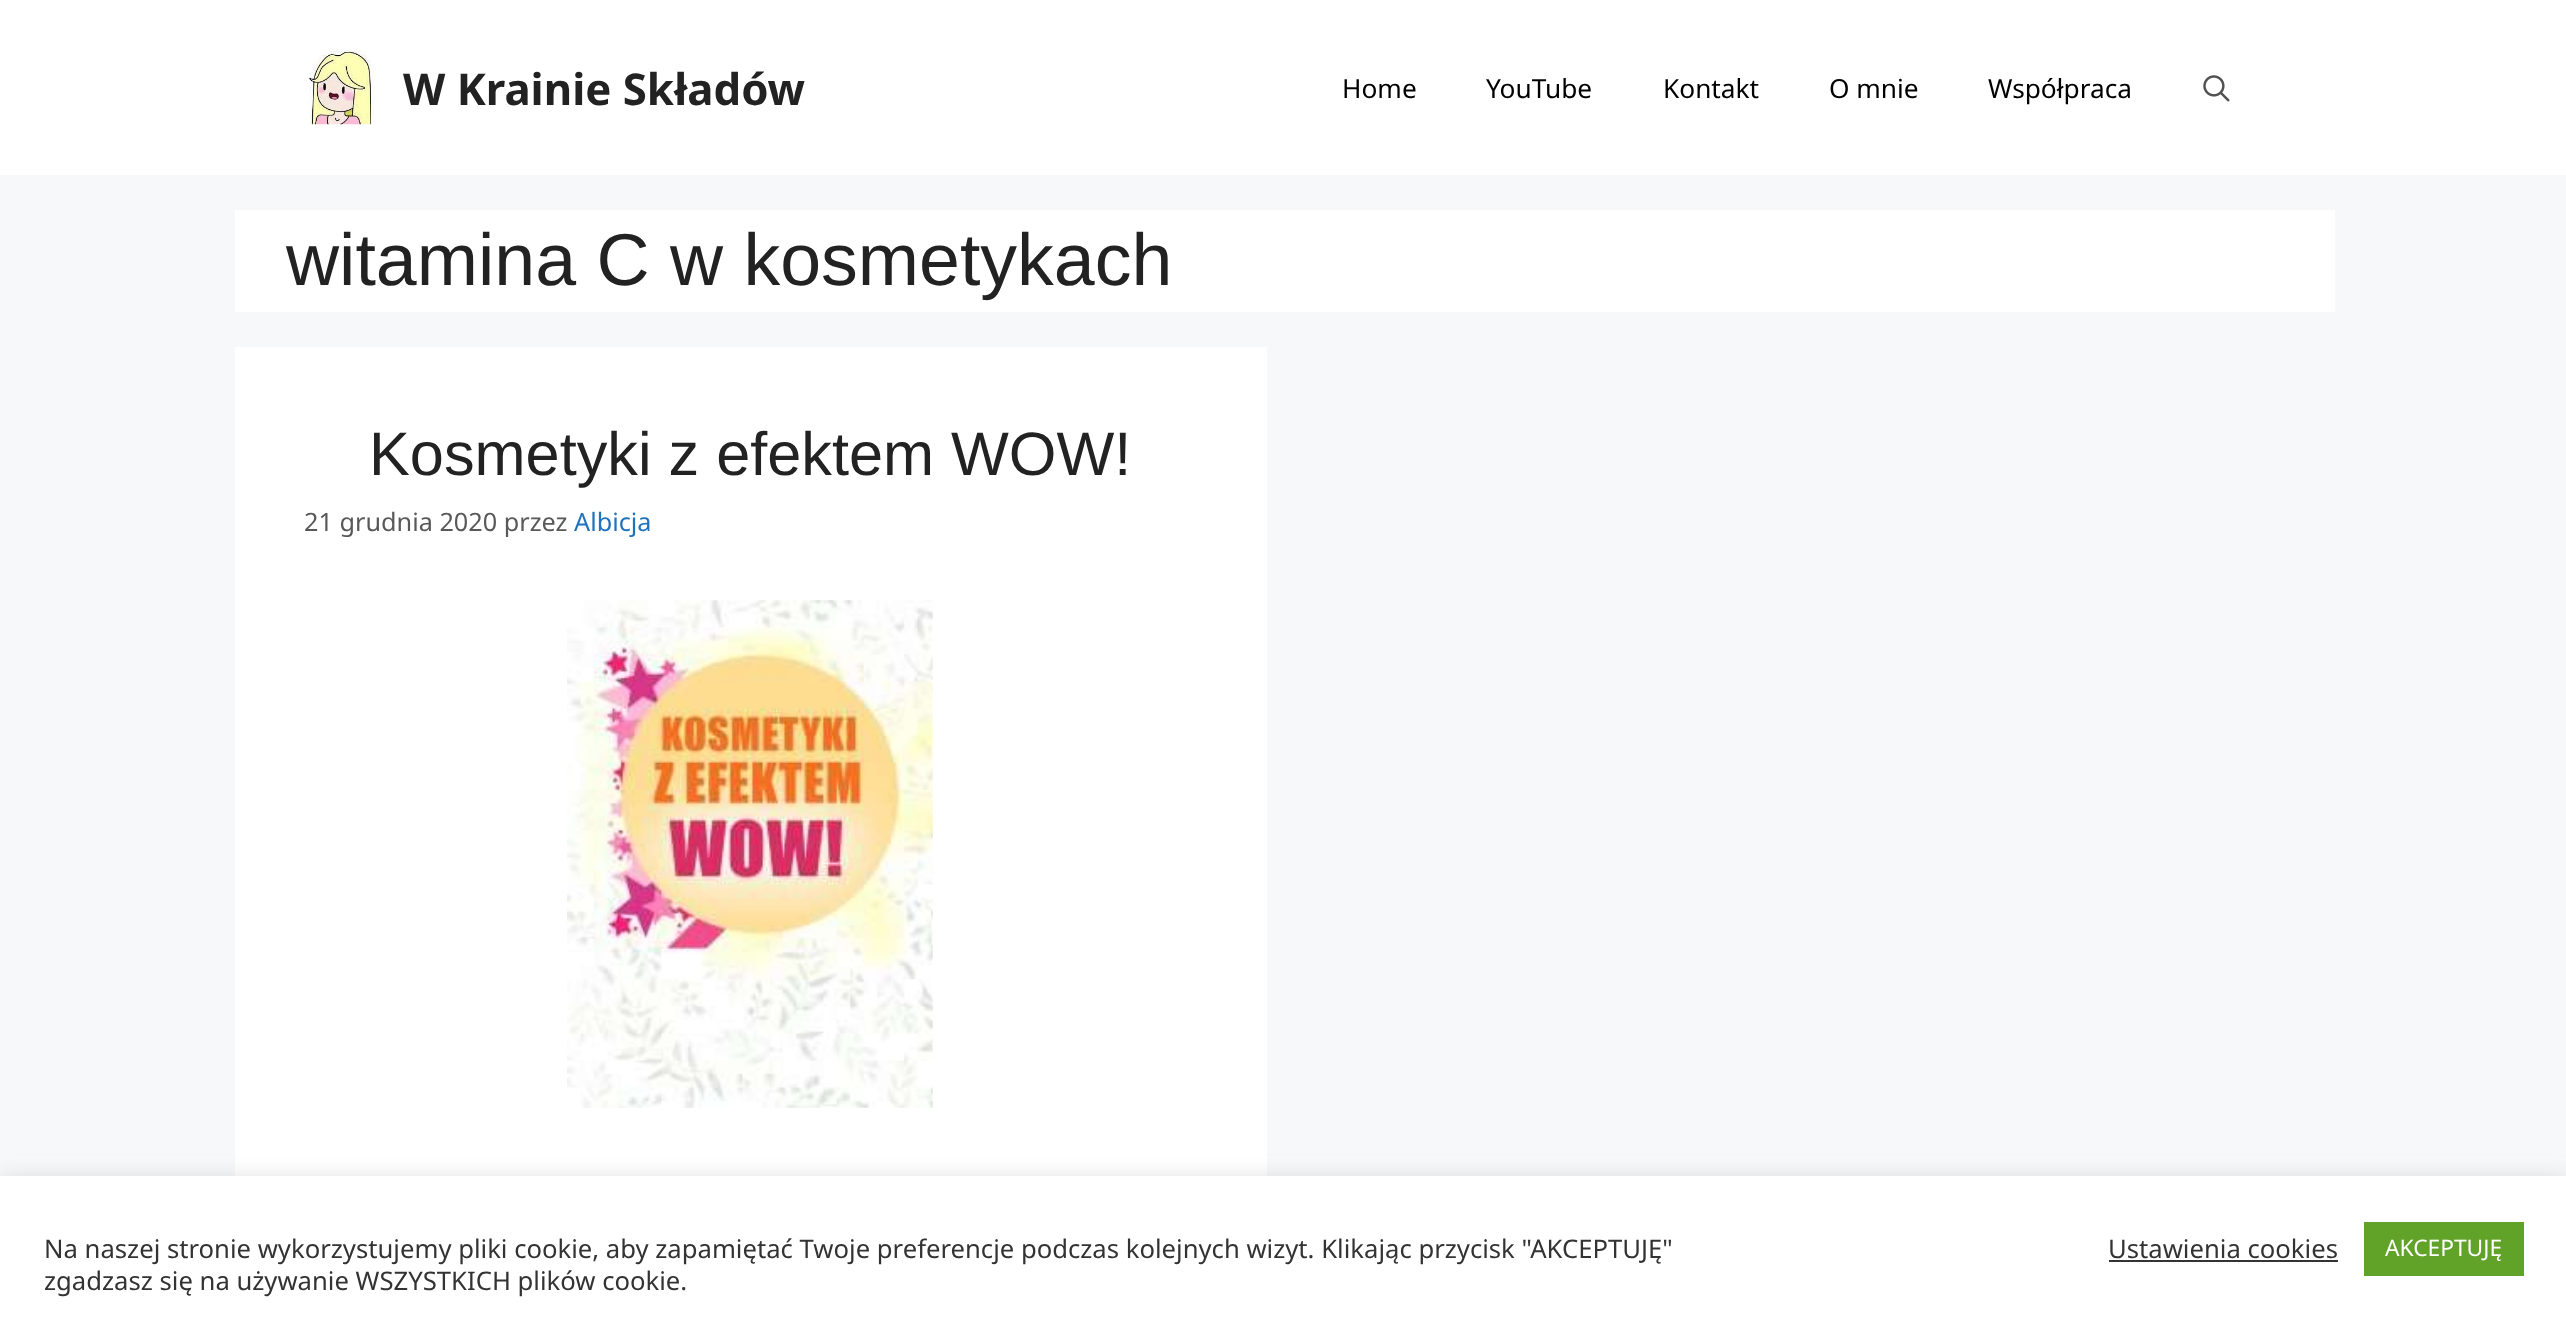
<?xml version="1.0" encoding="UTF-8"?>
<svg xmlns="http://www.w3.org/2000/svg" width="2566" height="1318">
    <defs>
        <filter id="blur1" x="-50%" y="-200%" width="200%" height="500%"><feGaussianBlur stdDeviation="9"/></filter>
    </defs>
    <rect width="100%" height="100%" fill="#F7F8F9"/>
    <rect x="0" y="0" width="2566" height="175" fill="#FFFFFF"/>
    <image x="309" y="50" width="66" height="75" href="img_01.png"/>
    <text x="403" y="105" font-family="Noto Sans" font-size="43.75" font-weight="700" fill="#222222">W Krainie Składów</text>
    <text x="1342" y="98" font-family="Noto Sans" font-size="26.25" fill="#000000">Home</text>
    <text x="1486" y="98" font-family="Noto Sans" font-size="26.25" fill="#000000">YouTube</text>
    <text x="1663" y="98" font-family="Noto Sans" font-size="26.25" fill="#000000">Kontakt</text>
    <text x="1829" y="98" font-family="Noto Sans" font-size="26.25" fill="#000000">O mnie</text>
    <text x="1988" y="98" font-family="Noto Sans" font-size="26.25" fill="#000000">Współpraca</text>
    <image x="2203" y="75" width="27" height="27" href="img_02.png"/>
    <rect x="235" y="210" width="2100" height="102" fill="#FFFFFF"/>
    <text x="286" y="285" font-family="Liberation Sans" font-size="73.5" fill="#222222">witamina C w kosmetykach</text>
    <rect x="235" y="347" width="1032" height="829" fill="#FFFFFF"/>
    <text x="369" y="475" font-family="Liberation Sans" font-size="61.25" fill="#222222">Kosmetyki z efektem WOW!</text>
    <text x="304" y="531" font-family="Noto Sans" font-size="25.25" fill="#595959">21 grudnia 2020 przez</text>
    <text x="574" y="531" font-family="Noto Sans" font-size="25.25" fill="#1E73BE">Albicja</text>
    <image x="567" y="600" width="366" height="508" href="img_03.png"/>
    <rect x="0" y="1174" width="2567" height="144" fill="#ACABAB" fill-opacity="0.3" filter="url(#blur1)"/>
    <rect x="0" y="1176" width="2566" height="142" fill="#FFFFFF"/>
    <text font-family="Noto Sans" font-size="25.67" fill="#333333">
        <tspan x="44" y="1258">Na naszej stronie wykorzystujemy pliki cookie, aby zapamiętać Twoje preferencje podczas kolejnych wizyt. Klikając przycisk "AKCEPTUJĘ"</tspan>
        <tspan x="44" y="1290">zgadzasz się na używanie WSZYSTKICH plików cookie.</tspan>
    </text>
    <text x="2108" y="1258" font-family="Noto Sans" font-size="25.67" fill="#333333">Ustawienia cookies</text>
    <rect x="2109" y="1260" width="229" height="2" fill="#333333"/>
    <rect x="2364" y="1222" width="160" height="54" fill="#61A229"/>
    <text x="2385" y="1256" font-family="Noto Sans" font-size="22.75" fill="#FFFFFF">AKCEPTUJĘ</text>
</svg>
